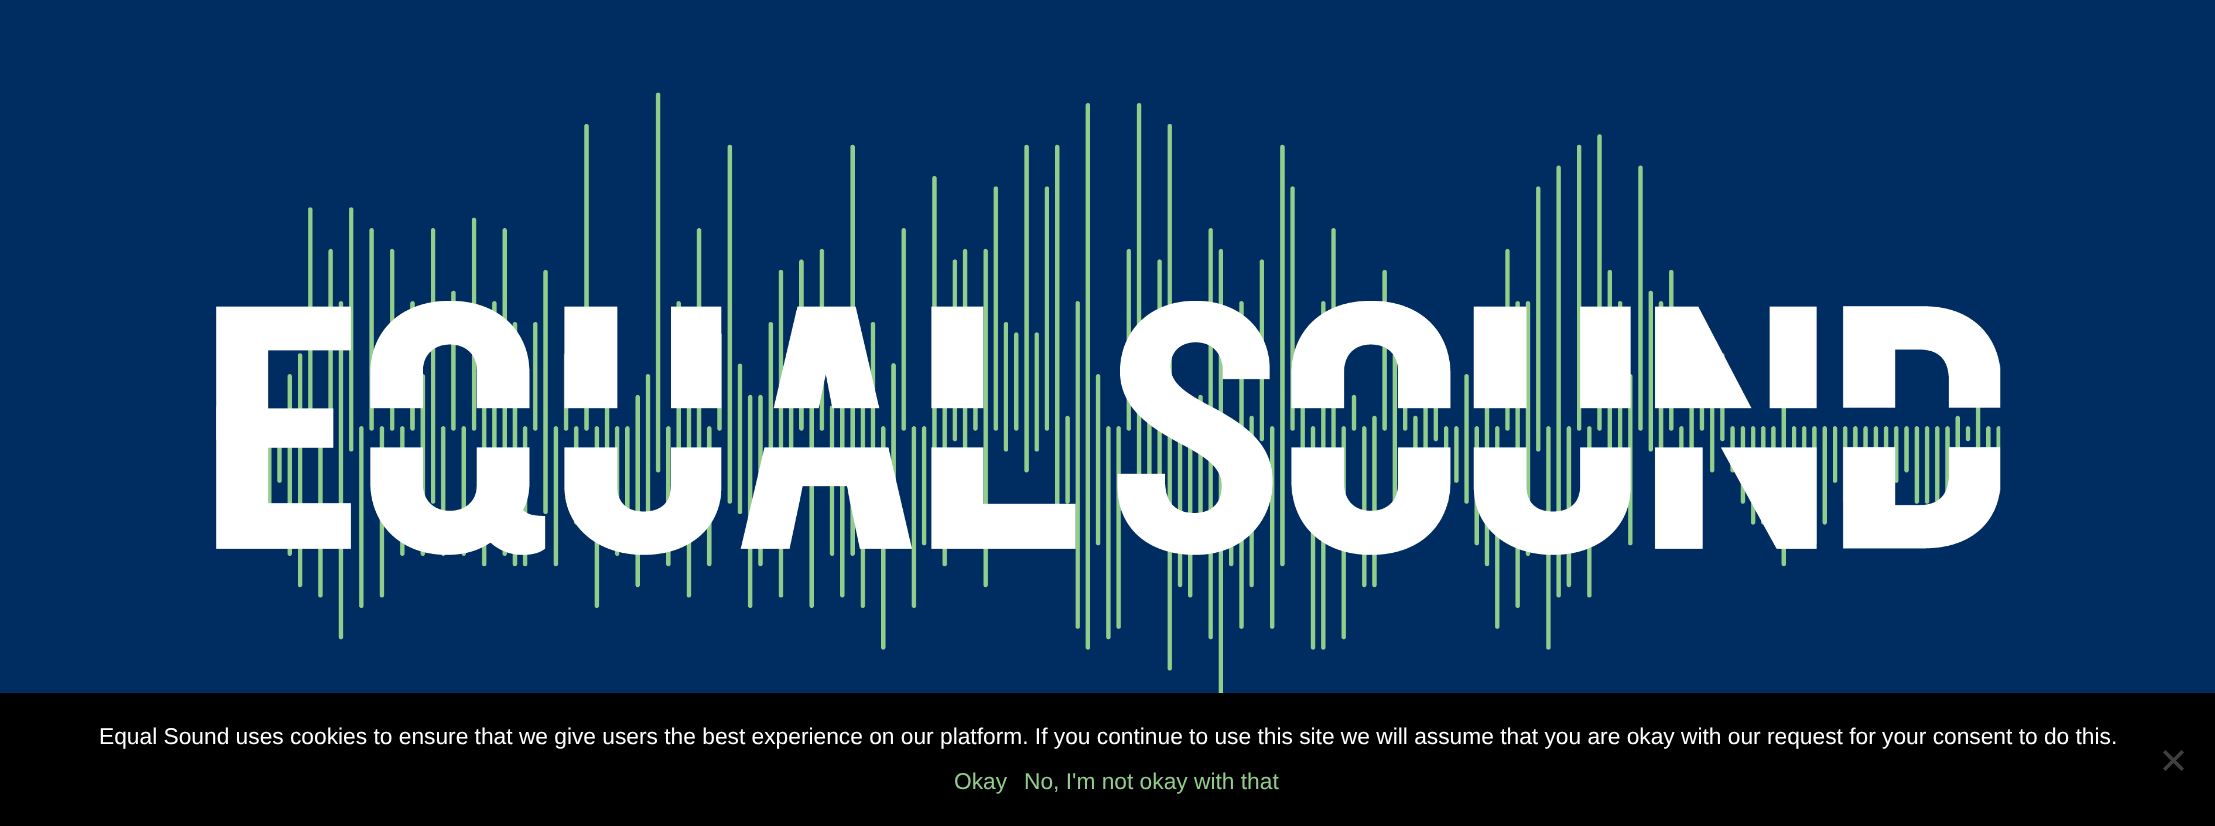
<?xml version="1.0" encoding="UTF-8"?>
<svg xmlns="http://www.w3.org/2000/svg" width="2215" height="826">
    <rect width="100%" height="100%" fill="#002D61"/>
    <image x="216" y="92" width="1785" height="601" href="img_01.png"/>
    <rect x="0" y="693" width="2215" height="133" fill="#000000"/>
    <text x="99" y="744" font-family="Liberation Sans" font-size="22.75" fill="#FFFFFF">Equal Sound uses cookies to ensure that we give users the best experience on our platform. If you continue to use this site we will assume that you are okay with our request for your consent to do this.</text>
    <path d="M 2181.5 750 L 2184 752.5 L 2165.5 771 L 2163 768.5 Z" fill="#404040"/>
    <path d="M 2163 752.5 L 2165.5 750 L 2184 768.5 L 2181.5 771 Z" fill="#404040"/>
    <text x="954" y="789" font-family="Liberation Sans" font-size="22.75" fill="#92CD8B">Okay</text>
    <text x="1024" y="789" font-family="Liberation Sans" font-size="22.75" fill="#92CD8B">No, I'm not okay with that</text>
</svg>
